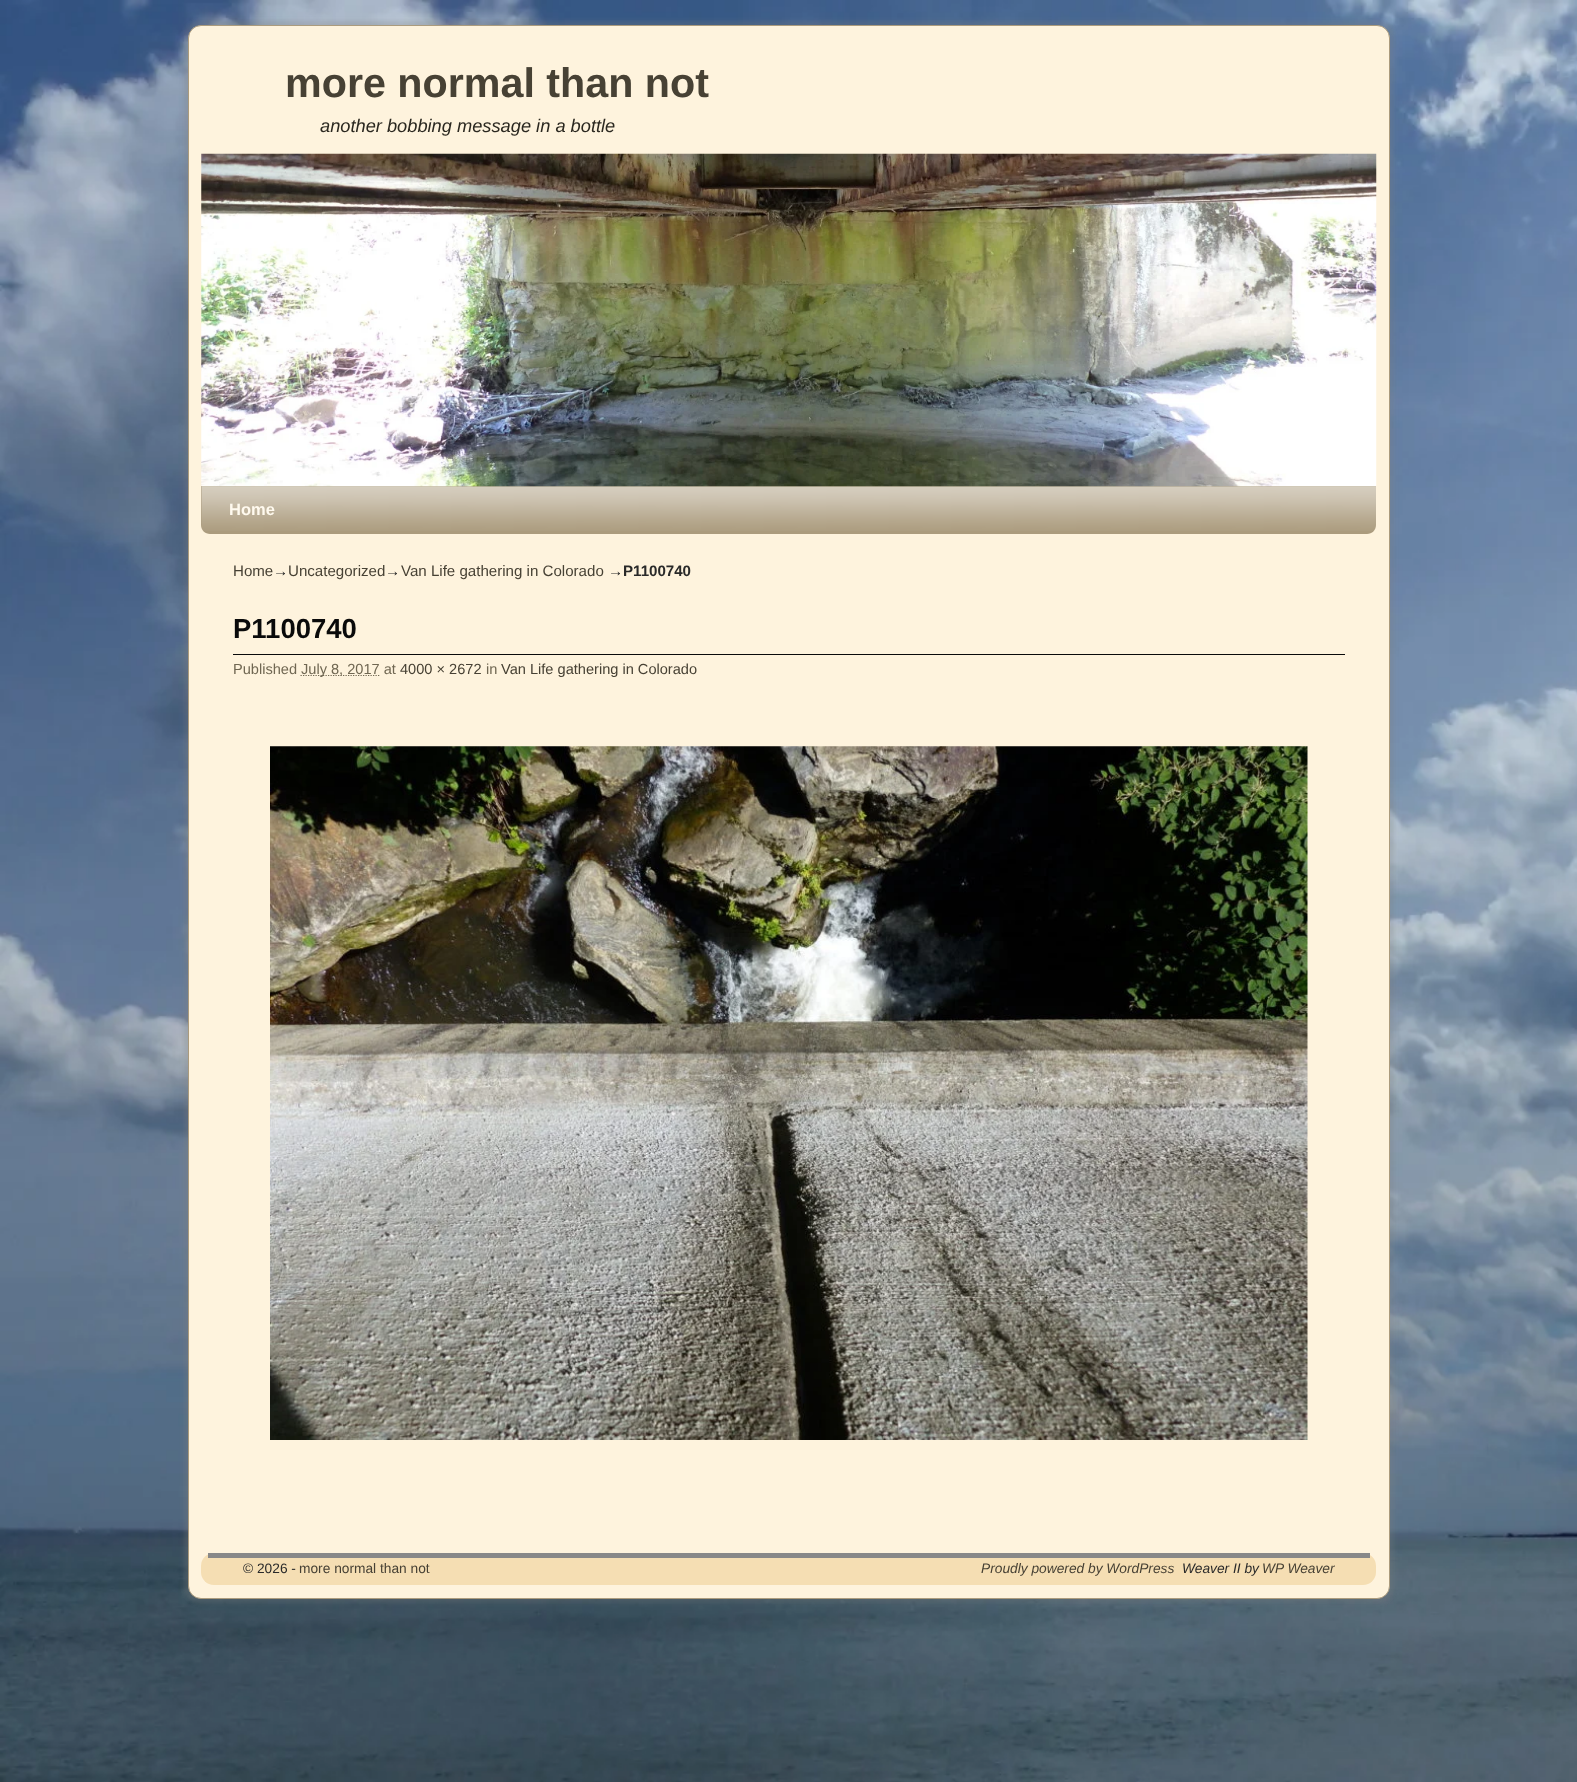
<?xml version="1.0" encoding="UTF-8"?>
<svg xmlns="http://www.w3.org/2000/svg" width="1577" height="1782">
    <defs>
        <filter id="blur1" x="-50%" y="-200%" width="200%" height="500%"><feGaussianBlur stdDeviation="2"/></filter>
    </defs>
    <rect width="100%" height="100%" fill="#FFFFFF"/>
    <image x="0" y="0" width="1577" height="1782" href="img_01.png"/>
    <rect x="184" y="21" width="1210" height="1582" rx="16" fill="#7F7F7F" fill-opacity="0.25" filter="url(#blur1)"/>
    <rect x="188.5" y="25.5" width="1201" height="1573" rx="12.5" fill="#FEF3DD" stroke="#AB9B7D"/>
    <text x="285" y="97" font-family="Liberation Sans" font-size="41.25" font-weight="700" fill="#474134">more normal than not</text>
    <text x="320" y="132" font-family="Liberation Sans" font-size="18.25" font-style="italic" fill="#2B2820">another bobbing message in a bottle</text>
    <path d="M 201 486 H 1376 V 525 C 1376 530 1372 534 1367 534 H 210 C 205 534 201 530 201 525 Z" fill="#AB9B7D"/>
    <image x="201" y="486" width="1175" height="45" href="img_03.png"/>
    <image x="201" y="153" width="1176" height="334" href="img_02.png"/>
    <text x="229" y="515" font-family="Liberation Sans" font-size="16.5" font-weight="700" fill="#FFFAEF">Home</text>
    <text x="233" y="576" font-family="Liberation Sans" font-size="15.1" fill="#474134">Home</text>
    <text x="273" y="576" font-family="Liberation Sans" font-size="15.1" fill="#292929">→</text>
    <text x="288" y="576" font-family="Liberation Sans" font-size="15.1" fill="#474134">Uncategorized</text>
    <text x="385" y="576" font-family="Liberation Sans" font-size="15.1" fill="#292929">→</text>
    <text x="401" y="576" font-family="Liberation Sans" font-size="15.1" fill="#474134">Van Life gathering in Colorado</text>
    <text x="608" y="576" font-family="Liberation Sans" font-size="15.1" fill="#292929">→</text>
    <text x="623" y="576" font-family="Liberation Sans" font-size="15.1" font-weight="700" fill="#292929">P1100740</text>
    <rect x="233" y="654" width="1112" height="1" fill="#0A0A0A"/>
    <text x="233" y="638" font-family="Liberation Sans" font-size="27.5" font-weight="700" fill="#0A0A0A">P1100740</text>
    <text x="233" y="674" font-family="Liberation Sans" font-size="14.6" fill="#706752">Published</text>
    <path d="M 300.5 675.5 H 379.5" fill="none" stroke="#706752" stroke-width="1.2" stroke-dasharray="1.25 1.25"/>
    <text x="301" y="674" font-family="Liberation Sans" font-size="14.6" fill="#706752">July 8, 2017 at</text>
    <text x="400" y="674" font-family="Liberation Sans" font-size="14.6" fill="#474134">4000 × 2672</text>
    <text x="486" y="674" font-family="Liberation Sans" font-size="14.6" fill="#706752">in</text>
    <text x="501" y="674" font-family="Liberation Sans" font-size="14.6" fill="#474134">Van Life gathering in Colorado</text>
    <image x="270" y="746" width="1038" height="694" href="img_04.png"/>
    <rect x="201" y="1553" width="1175" height="32" rx="13" fill="#F5DEB3"/>
    <rect x="208" y="1553" width="1162" height="5" fill="#888888"/>
    <text x="243" y="1573" font-family="Liberation Sans" font-size="13.75" fill="#292929">© 2026 -</text>
    <text x="299" y="1573" font-family="Liberation Sans" font-size="13.75" fill="#474134">more normal than not</text>
    <text x="981" y="1573" font-family="Liberation Sans" font-size="13.75" font-style="italic" fill="#474134">Proudly powered by WordPress</text>
    <text x="1182" y="1573" font-family="Liberation Sans" font-size="13.75" font-style="italic" fill="#292929">Weaver II by</text>
    <text x="1262" y="1573" font-family="Liberation Sans" font-size="13.75" font-style="italic" fill="#474134">WP Weaver</text>
</svg>
